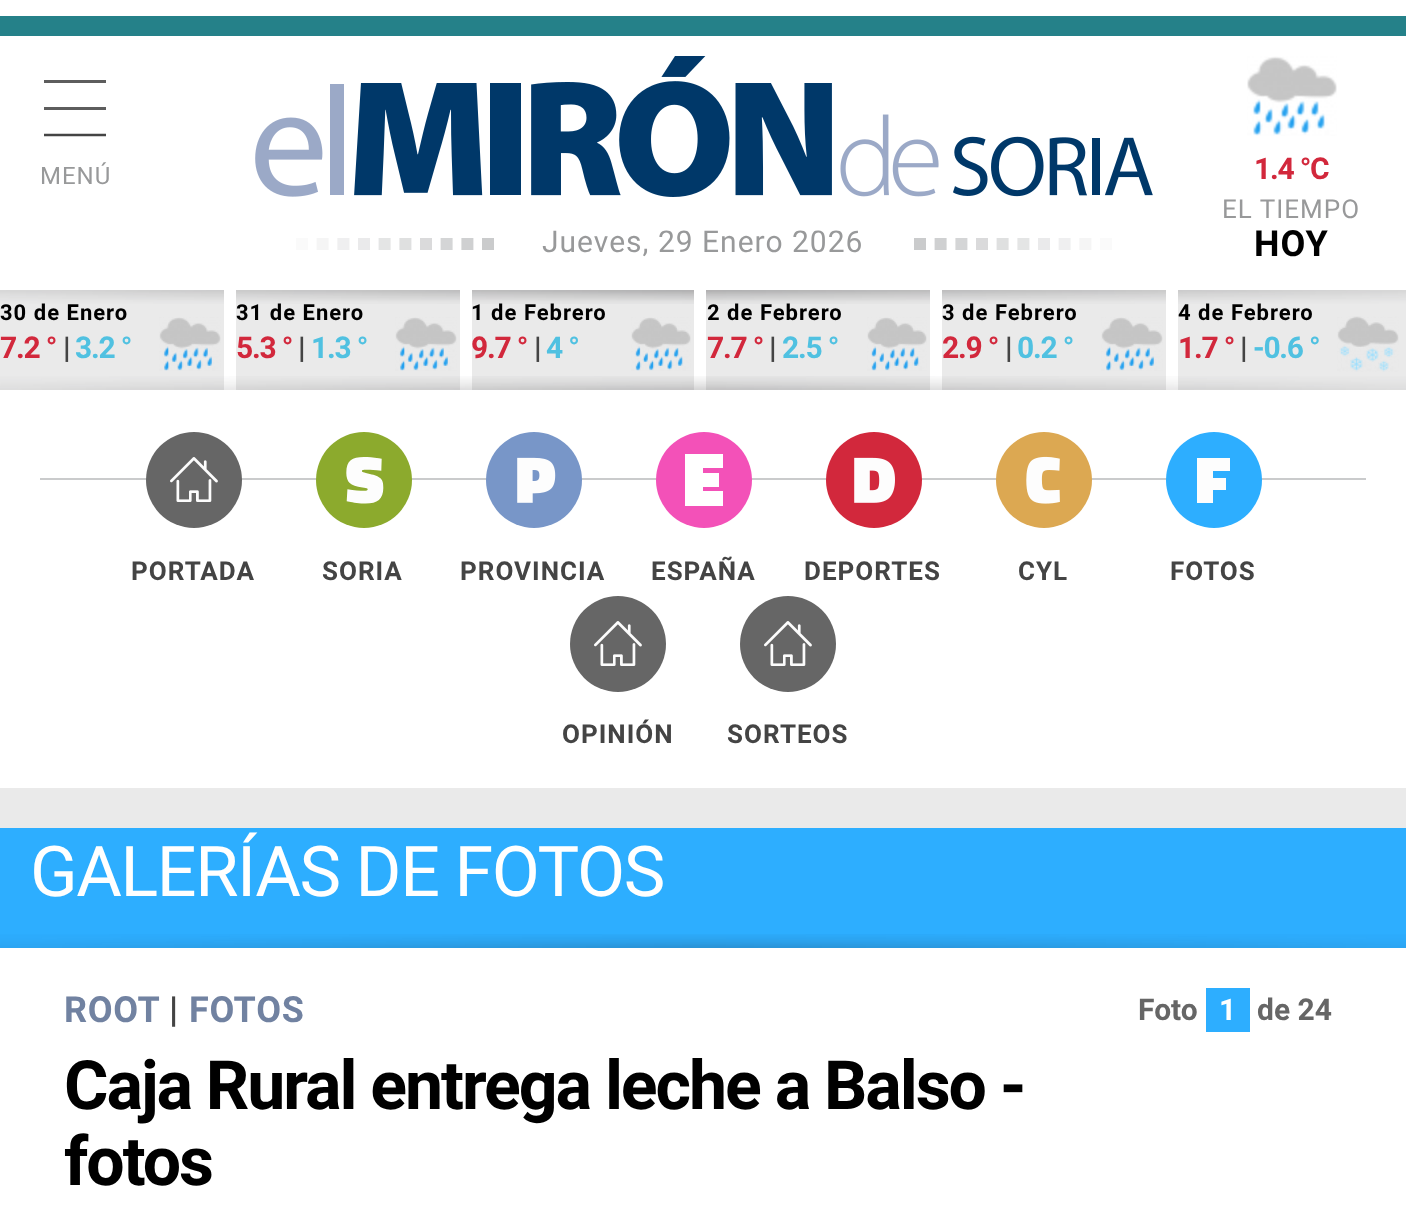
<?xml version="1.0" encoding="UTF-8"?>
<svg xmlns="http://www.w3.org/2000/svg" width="1406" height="1219">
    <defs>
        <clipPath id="clip1"><rect x="44" y="76" width="62" height="64"/></clipPath>
    </defs>
    <rect width="100%" height="100%" fill="#EAEAEA"/>
    <rect x="0" y="16" width="1406" height="20" fill="#258189"/>
    <rect x="0" y="0" width="1406" height="16" fill="#FFFFFF"/>
    <rect x="0" y="36" width="1406" height="752" fill="#FFFFFF"/>
    <image x="255" y="56" width="898" height="141" href="img_01.png"/>
    <rect x="44" y="80" width="62" height="3" fill="#5D5D5D"/>
    <rect x="44" y="107" width="62" height="3" fill="#5D5D5D"/>
    <g clip-path="url(#clip1)">
        <path d="M 44 135 H 107" fill="none" stroke="#444444" stroke-width="2.6"/>
    </g>
    <text x="40" y="184" font-family="Roboto" font-size="24" letter-spacing="1" fill="#98999A">MENÚ</text>
    <image x="1247" y="56" width="90" height="80" href="img_02.png"/>
    <text x="1254" y="179" font-family="Roboto" font-size="30" font-weight="700" letter-spacing="-1.25" fill="#D2283C">1.4 °C</text>
    <text x="1222" y="218" font-family="Roboto" font-size="26" letter-spacing="1" fill="#98999A">EL TIEMPO</text>
    <text x="1254" y="256" font-family="Roboto" font-size="36" font-weight="700" letter-spacing="1" fill="#000000">HOY</text>
    <image x="296" y="238" width="198" height="12" href="img_03.png"/>
    <text x="542" y="252" font-family="Roboto" font-size="30" letter-spacing="1" fill="#98999A">Jueves, 29 Enero 2026</text>
    <image x="914" y="238" width="198" height="12" href="img_04.png"/>
    <rect x="0" y="290" width="1406" height="100" fill="#EAEAEA"/>
    <image x="0" y="290" width="1406" height="14" href="img_05.png"/>
    <rect x="224" y="290" width="12" height="100" fill="#FFFFFF"/>
    <text x="0" y="320" font-family="Roboto" font-size="22" font-weight="700" letter-spacing="1" fill="#000000">30 de Enero</text>
    <text x="0" y="358" font-family="Roboto" font-size="30" font-weight="700" letter-spacing="-1.25" fill="#D2283C">7.2 °</text>
    <text x="63" y="358" font-family="Roboto" font-size="30" font-weight="700" letter-spacing="-1.25" fill="#444444">|</text>
    <text x="75" y="358" font-family="Roboto" font-size="30" font-weight="700" letter-spacing="-1.25" fill="#50C1E1">3.2 °</text>
    <image x="159" y="317" width="62" height="54" href="img_06.png"/>
    <rect x="460" y="290" width="12" height="100" fill="#FFFFFF"/>
    <text x="236" y="320" font-family="Roboto" font-size="22" font-weight="700" letter-spacing="1" fill="#000000">31 de Enero</text>
    <text x="236" y="358" font-family="Roboto" font-size="30" font-weight="700" letter-spacing="-1.25" fill="#D2283C">5.3 °</text>
    <text x="298" y="358" font-family="Roboto" font-size="30" font-weight="700" letter-spacing="-1.25" fill="#444444">|</text>
    <text x="311" y="358" font-family="Roboto" font-size="30" font-weight="700" letter-spacing="-1.25" fill="#50C1E1">1.3 °</text>
    <image x="395" y="317" width="62" height="54" href="img_06.png"/>
    <rect x="694" y="290" width="12" height="100" fill="#FFFFFF"/>
    <text x="471" y="320" font-family="Roboto" font-size="22" font-weight="700" letter-spacing="1" fill="#000000">1 de Febrero</text>
    <text x="471" y="358" font-family="Roboto" font-size="30" font-weight="700" letter-spacing="-1.25" fill="#D2283C">9.7 °</text>
    <text x="534" y="358" font-family="Roboto" font-size="30" font-weight="700" letter-spacing="-1.25" fill="#444444">|</text>
    <text x="546" y="358" font-family="Roboto" font-size="30" font-weight="700" letter-spacing="-1.25" fill="#50C1E1">4 °</text>
    <image x="631" y="317" width="60" height="54" href="img_07.png"/>
    <rect x="930" y="290" width="12" height="100" fill="#FFFFFF"/>
    <text x="707" y="320" font-family="Roboto" font-size="22" font-weight="700" letter-spacing="1" fill="#000000">2 de Febrero</text>
    <text x="707" y="358" font-family="Roboto" font-size="30" font-weight="700" letter-spacing="-1.25" fill="#D2283C">7.7 °</text>
    <text x="769" y="358" font-family="Roboto" font-size="30" font-weight="700" letter-spacing="-1.25" fill="#444444">|</text>
    <text x="782" y="358" font-family="Roboto" font-size="30" font-weight="700" letter-spacing="-1.25" fill="#50C1E1">2.5 °</text>
    <image x="867" y="317" width="60" height="54" href="img_08.png"/>
    <rect x="1166" y="290" width="12" height="100" fill="#FFFFFF"/>
    <text x="942" y="320" font-family="Roboto" font-size="22" font-weight="700" letter-spacing="1" fill="#000000">3 de Febrero</text>
    <text x="942" y="358" font-family="Roboto" font-size="30" font-weight="700" letter-spacing="-1.25" fill="#D2283C">2.9 °</text>
    <text x="1005" y="358" font-family="Roboto" font-size="30" font-weight="700" letter-spacing="-1.25" fill="#444444">|</text>
    <text x="1017" y="358" font-family="Roboto" font-size="30" font-weight="700" letter-spacing="-1.25" fill="#50C1E1">0.2 °</text>
    <image x="1101" y="317" width="62" height="54" href="img_06.png"/>
    <text x="1178" y="320" font-family="Roboto" font-size="22" font-weight="700" letter-spacing="1" fill="#000000">4 de Febrero</text>
    <text x="1178" y="358" font-family="Roboto" font-size="30" font-weight="700" letter-spacing="-1.25" fill="#D2283C">1.7 °</text>
    <text x="1240" y="358" font-family="Roboto" font-size="30" font-weight="700" letter-spacing="-1.25" fill="#444444">|</text>
    <text x="1253" y="358" font-family="Roboto" font-size="30" font-weight="700" letter-spacing="-1.25" fill="#50C1E1">-0.6 °</text>
    <image x="1337" y="316" width="62" height="56" href="img_09.png"/>
    <image x="0" y="376" width="1406" height="14" href="img_10.png"/>
    <rect x="40" y="478" width="1326" height="2" fill="#CACBCC"/>
    <circle cx="194" cy="480" r="48" fill="#666666"/>
    <image x="170" y="457" width="48" height="45" href="img_11.png"/>
    <text x="131" y="580" font-family="Roboto" font-size="26" font-weight="700" letter-spacing="1" fill="#444444">PORTADA</text>
    <circle cx="364" cy="480" r="48" fill="#8CAA2D"/>
    <image x="346" y="457" width="38" height="47" href="img_12.png"/>
    <text x="322" y="580" font-family="Roboto" font-size="26" font-weight="700" letter-spacing="1" fill="#444444">SORIA</text>
    <circle cx="534" cy="480" r="48" fill="#7896C8"/>
    <image x="517" y="457" width="39" height="46" href="img_13.png"/>
    <text x="460" y="580" font-family="Roboto" font-size="26" font-weight="700" letter-spacing="1" fill="#444444">PROVINCIA</text>
    <circle cx="704" cy="480" r="48" fill="#F351B8"/>
    <path d="M 685 506 V 454 H 723 V 468 H 703 V 473 H 719 V 487 H 703 V 491 H 723 V 506 Z" fill="#FFFFFF"/>
    <text x="651" y="580" font-family="Roboto" font-size="26" font-weight="700" letter-spacing="1" fill="#444444">ESPAÑA</text>
    <circle cx="874" cy="480" r="48" fill="#D2283C"/>
    <image x="854" y="457" width="41" height="46" href="img_14.png"/>
    <text x="804" y="580" font-family="Roboto" font-size="26" font-weight="700" letter-spacing="1" fill="#444444">DEPORTES</text>
    <circle cx="1044" cy="480" r="48" fill="#DCA852"/>
    <image x="1026" y="456" width="34" height="48" href="img_15.png"/>
    <text x="1018" y="580" font-family="Roboto" font-size="26" font-weight="700" letter-spacing="1" fill="#444444">CYL</text>
    <circle cx="1214" cy="480" r="48" fill="#2DAEFF"/>
    <path d="M 1197 503 V 458 H 1230 V 471 H 1213 V 478 H 1226 V 490 H 1213 V 503 Z" fill="#FDFDFD"/>
    <text x="1170" y="580" font-family="Roboto" font-size="26" font-weight="700" letter-spacing="1" fill="#444444">FOTOS</text>
    <circle cx="618" cy="644" r="48" fill="#666666"/>
    <image x="594" y="621" width="48" height="45" href="img_11.png"/>
    <text x="562" y="743" font-family="Roboto" font-size="26" font-weight="700" letter-spacing="1" fill="#444444">OPINIÓN</text>
    <circle cx="788" cy="644" r="48" fill="#666666"/>
    <image x="764" y="621" width="48" height="45" href="img_11.png"/>
    <text x="727" y="743" font-family="Roboto" font-size="26" font-weight="700" letter-spacing="1" fill="#444444">SORTEOS</text>
    <rect x="0" y="828" width="1406" height="120" fill="#2DAEFF"/>
    <text x="30" y="896" font-family="Roboto" font-size="70" letter-spacing="-1.4" fill="#FFFFFF">GALERÍAS DE FOTOS</text>
    <image x="0" y="934" width="1406" height="14" href="img_16.png"/>
    <rect x="0" y="948" width="1406" height="271" fill="#FFFFFF"/>
    <text x="64" y="1022" font-family="Roboto" font-size="36" font-weight="700" letter-spacing="0.75" fill="#7182A1">ROOT</text>
    <text x="169" y="1022" font-family="Roboto" font-size="36" font-weight="700" letter-spacing="0.75" fill="#444444">|</text>
    <text x="189" y="1022" font-family="Roboto" font-size="36" font-weight="700" letter-spacing="0.75" fill="#7182A1">FOTOS</text>
    <text x="1138" y="1020" font-family="Roboto" font-size="30" font-weight="700" fill="#666666">Foto</text>
    <rect x="1206" y="988" width="44" height="44" fill="#2DAEFF"/>
    <text x="1219" y="1020" font-family="Roboto" font-size="30" font-weight="700" fill="#FFFFFF">1</text>
    <text x="1257" y="1020" font-family="Roboto" font-size="30" font-weight="700" fill="#666666">de 24</text>
    <text font-family="Roboto" font-size="68" font-weight="700" letter-spacing="-2.05" fill="#000000">
        <tspan x="64" y="1109">Caja Rural entrega leche a Balso -</tspan>
        <tspan x="64" y="1185">fotos</tspan>
    </text>
</svg>
